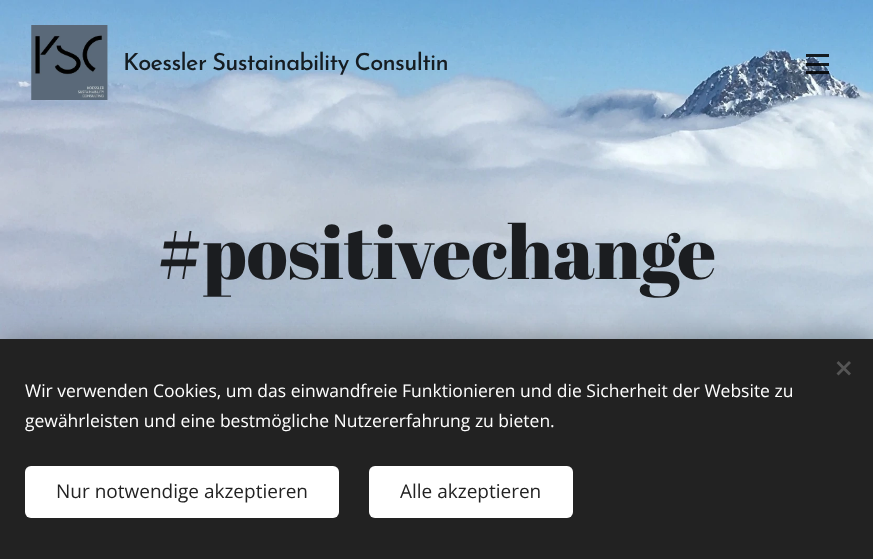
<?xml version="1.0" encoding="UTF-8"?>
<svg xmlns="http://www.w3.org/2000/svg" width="873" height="559">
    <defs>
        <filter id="blur1" x="-50%" y="-200%" width="200%" height="500%"><feGaussianBlur stdDeviation="15.5"/></filter>
    </defs>
    <rect width="100%" height="100%" fill="#FFFFFF"/>
    <image x="0" y="0" width="873" height="339" href="img_02.png"/>
    <image x="31" y="25" width="77" height="75" href="img_01.png"/>
    <text x="123" y="70" word-spacing="-1" font-family="Josefin Sans" font-size="23.6" font-weight="500" letter-spacing="-0.65" fill="#151C21">Koessler Sustainability Consultin</text>
    <rect x="806" y="63" width="23" height="3" fill="#000000" fill-opacity="0.85"/>
    <rect x="806" y="54" width="23" height="3" fill="#000000" fill-opacity="0.85"/>
    <rect x="806" y="71" width="23" height="3" fill="#000000" fill-opacity="0.85"/>
    <text x="157" y="279" font-family="Abril Fatface" font-size="75" fill="#1B1D20">#positivechange</text>
    <rect x="0" y="339" width="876" height="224" fill="#000000" fill-opacity="0.33" filter="url(#blur1)"/>
    <rect x="0" y="339" width="873" height="220" fill="#222222"/>
    <path d="M 836.5 373.5 L 849 361 L 851 363 L 838.5 375.5 Z" fill="#555555"/>
    <path d="M 838.5 361 L 851 373.5 L 849 375.5 L 836.5 363 Z" fill="#555555"/>
    <text font-family="Open Sans" font-size="17.5" fill="#FFFFFF">
        <tspan x="25" y="397">Wir verwenden Cookies, um das einwandfreie Funktionieren und die Sicherheit der Website zu</tspan>
        <tspan x="25" y="427">gewährleisten und eine bestmögliche Nutzererfahrung zu bieten.</tspan>
    </text>
    <rect x="25" y="466" width="314" height="52" rx="6" fill="#FFFFFF"/>
    <text x="56" y="498" font-family="Open Sans" font-size="19" fill="#222222">Nur notwendige akzeptieren</text>
    <rect x="369" y="466" width="204" height="52" rx="6" fill="#FFFFFF"/>
    <text x="400" y="498" font-family="Open Sans" font-size="19" fill="#222222">Alle akzeptieren</text>
</svg>
